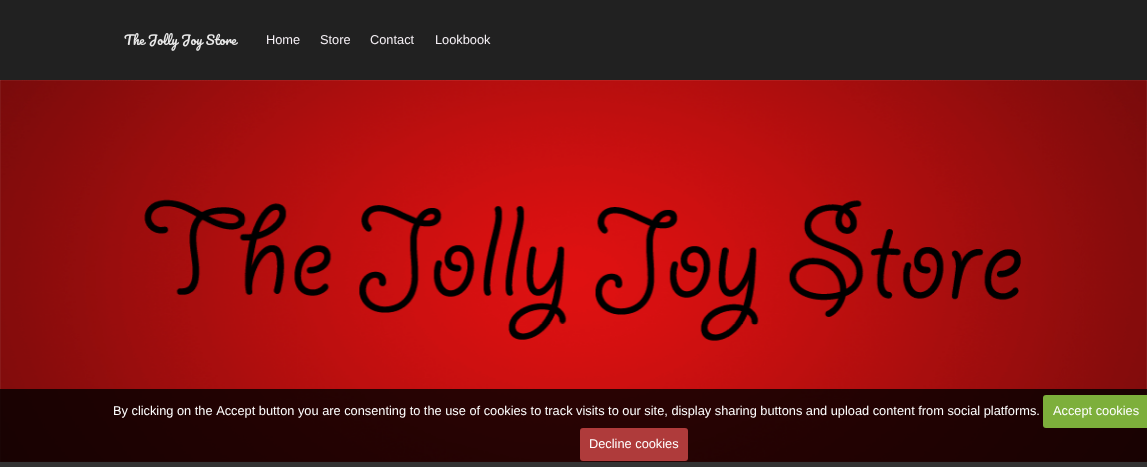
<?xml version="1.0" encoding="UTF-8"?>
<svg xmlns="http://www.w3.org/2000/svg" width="1147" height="467">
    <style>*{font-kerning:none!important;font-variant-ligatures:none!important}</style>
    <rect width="100%" height="100%" fill="#FFFFFF"/>
    <rect x="0" y="0" width="1147" height="80" fill="#212121"/>
    <text x="124" y="45" font-family="Pacifico" font-size="12.8" fill="#E9E9E9">The Jolly Joy Store</text>
    <text x="266" y="44" font-family="Liberation Sans" font-size="12.8" fill="#F5F0F5">Home</text>
    <text x="320" y="44" font-family="Liberation Sans" font-size="12.8" fill="#F5F0F5">Store</text>
    <text x="370" y="44" font-family="Liberation Sans" font-size="12.8" fill="#F5F0F5">Contact</text>
    <text x="435" y="44" font-family="Liberation Sans" font-size="12.8" fill="#F5F0F5">Lookbook</text>
    <image x="0" y="80" width="1147" height="382" href="img_01.png"/>
    <rect x="0" y="389" width="1147" height="78" fill="#000000" fill-opacity="0.8"/>
    <text x="113" y="415" font-family="Liberation Sans" font-size="12.8" fill="#FFFFFF">By clicking on the Accept button you are consenting to the use of cookies to track visits to our site, display sharing buttons and upload content from social platforms.</text>
    <rect x="1043" y="395" width="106" height="33" rx="3" fill="#7DAF3B"/>
    <text x="1053" y="415" font-family="Liberation Sans" font-size="12.8" fill="#FFFFFF">Accept cookies</text>
    <rect x="580" y="428" width="108" height="33" rx="3" fill="#AF3B3B"/>
    <text x="589" y="448" font-family="Liberation Sans" font-size="12.8" fill="#FFFFFF">Decline cookies</text>
</svg>
